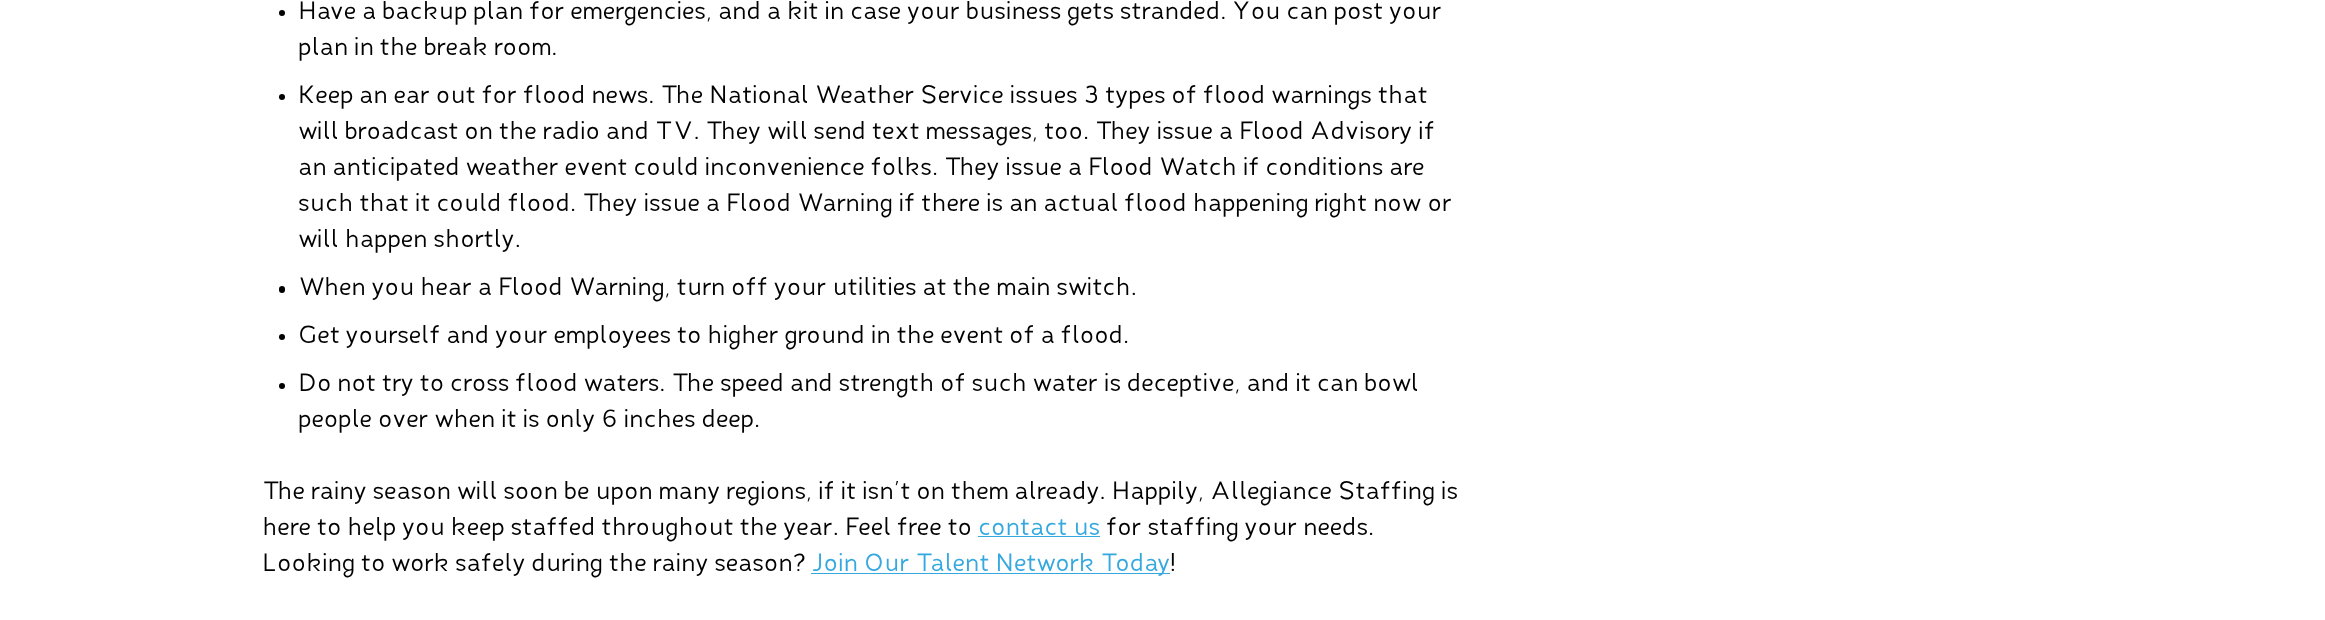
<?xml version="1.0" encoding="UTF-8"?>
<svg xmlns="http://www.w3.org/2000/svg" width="2325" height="620">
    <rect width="100%" height="100%" fill="#FFFFFF"/>
    <circle cx="282" cy="13" r="3" fill="#000000"/>
    <text font-family="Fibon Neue" font-size="24" fill="#000000">
        <tspan x="298" y="19">Have a backup plan for emergencies, and a kit in case your business gets stranded. You can post your</tspan>
        <tspan x="298" y="55">plan in the break room.</tspan>
    </text>
    <circle cx="282" cy="97" r="3" fill="#000000"/>
    <text font-family="Fibon Neue" font-size="24" fill="#000000">
        <tspan x="298" y="103">Keep an ear out for flood news. The National Weather Service issues 3 types of flood warnings that</tspan>
        <tspan x="298" y="139">will broadcast on the radio and TV. They will send text messages, too. They issue a Flood Advisory if</tspan>
        <tspan x="298" y="175">an anticipated weather event could inconvenience folks. They issue a Flood Watch if conditions are</tspan>
        <tspan x="298" y="211">such that it could flood. They issue a Flood Warning if there is an actual flood happening right now or</tspan>
        <tspan x="298" y="247">will happen shortly.</tspan>
    </text>
    <rect x="279" y="286" width="6" height="7" rx="3" fill="#000000"/>
    <text x="298" y="295" font-family="Fibon Neue" font-size="24" fill="#000000">When you hear a Flood Warning, turn off your utilities at the main switch.</text>
    <circle cx="282" cy="337" r="3" fill="#000000"/>
    <text x="298" y="343" font-family="Fibon Neue" font-size="24" fill="#000000">Get yourself and your employees to higher ground in the event of a flood.</text>
    <circle cx="282" cy="386" r="3" fill="#000000"/>
    <text font-family="Fibon Neue" font-size="24" fill="#000000">
        <tspan x="298" y="391">Do not try to cross flood waters. The speed and strength of such water is deceptive, and it can bowl</tspan>
        <tspan x="298" y="427">people over when it is only 6 inches deep.</tspan>
    </text>
    <text font-family="Fibon Neue" font-size="24" fill="#000000">
        <tspan x="262" y="499">The rainy season will soon be upon many regions, if it isn’t on them already. Happily, Allegiance Staffing is</tspan>
        <tspan x="262" y="535">here to help you keep staffed throughout the year. Feel free to</tspan>
    </text>
    <text x="978" y="535" font-family="Fibon Neue" font-size="24" fill="#34A8DF">contact us</text>
    <rect x="978" y="536" width="122" height="1" fill="#34A8DF"/>
    <text x="1106" y="535" font-family="Fibon Neue" font-size="24" fill="#000000">for staffing your needs.</text>
    <text x="262" y="571" font-family="Fibon Neue" font-size="24" fill="#000000">Looking to work safely during the rainy season?</text>
    <rect x="811" y="573" width="359" height="1" fill="#34A8DF"/>
    <text x="811" y="571" font-family="Fibon Neue" font-size="24" fill="#34A8DF">Join Our Talent Network Today</text>
    <text x="1170" y="571" font-family="Fibon Neue" font-size="24" fill="#000000">!</text>
</svg>
